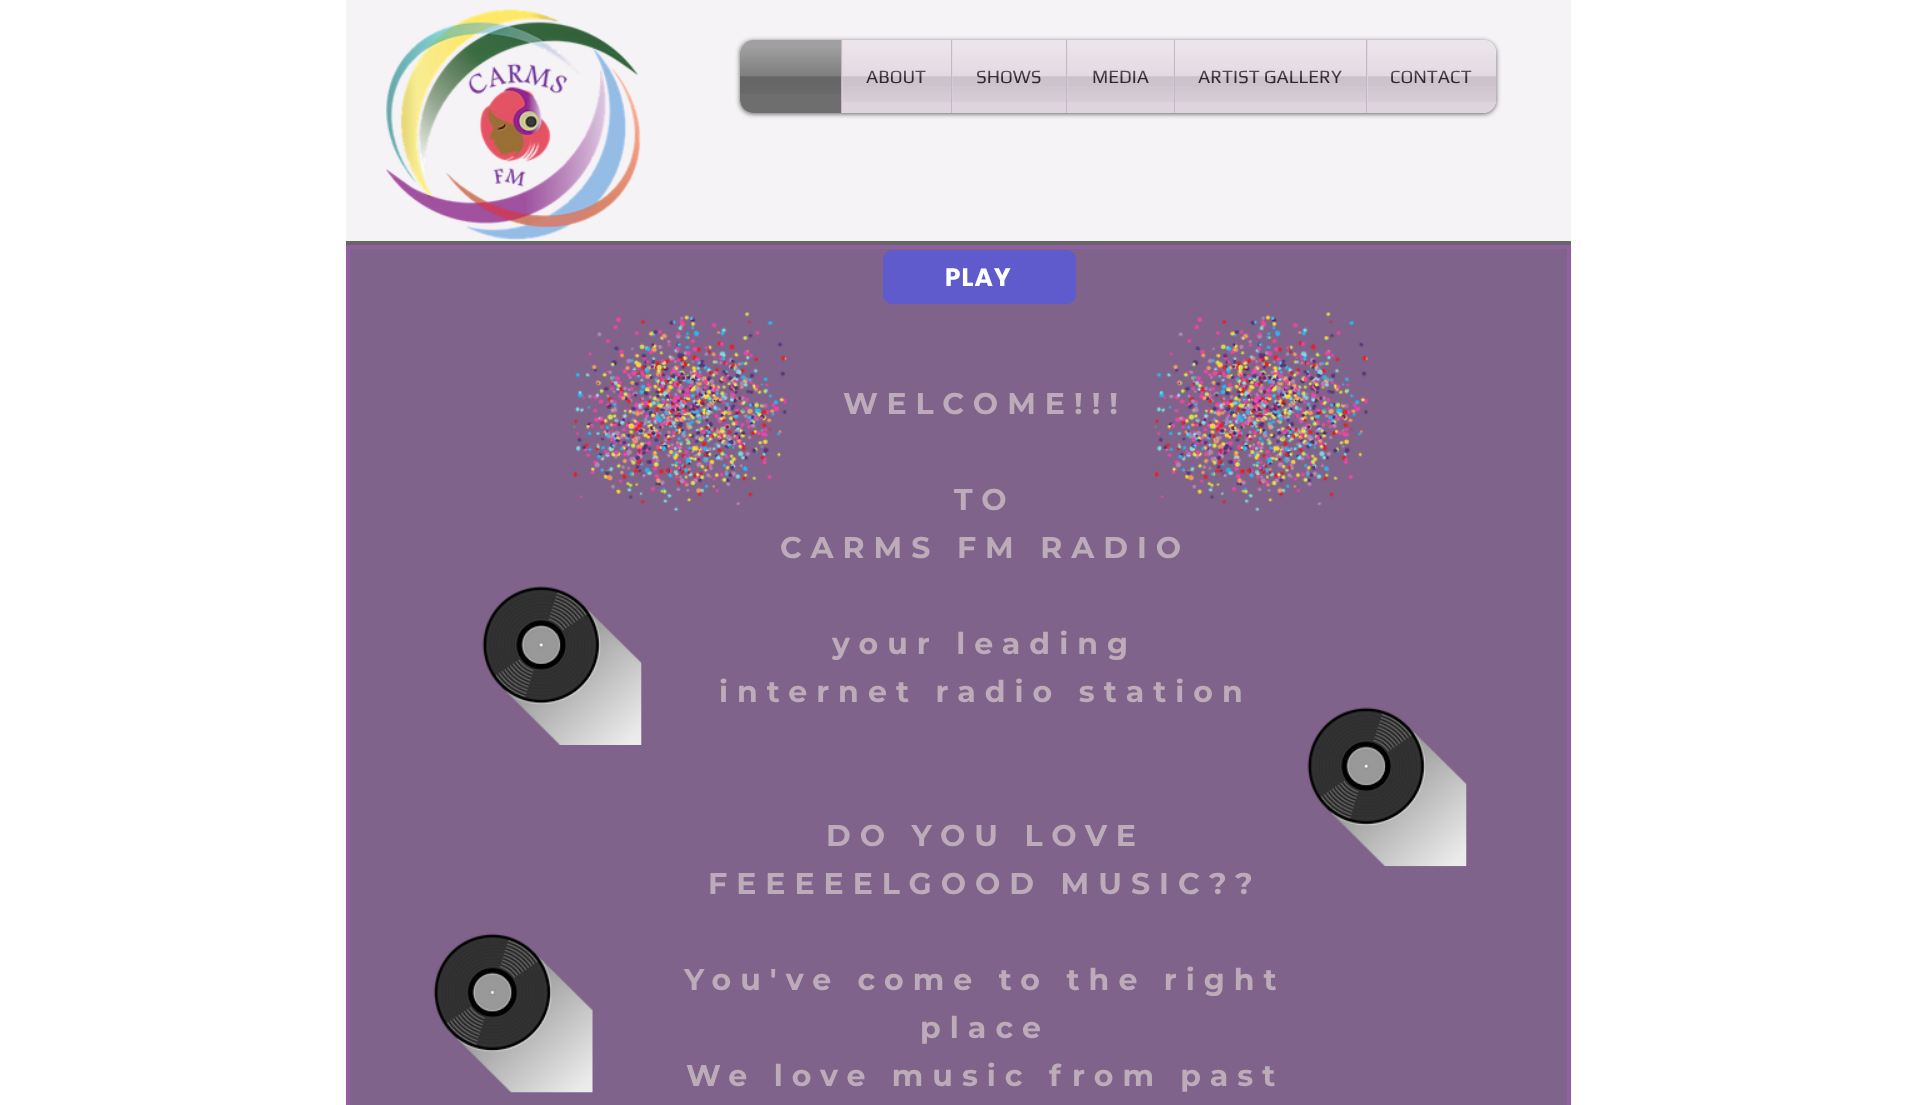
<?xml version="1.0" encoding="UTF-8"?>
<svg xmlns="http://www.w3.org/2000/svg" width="1916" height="1105">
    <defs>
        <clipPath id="clip1"><path d="M 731 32 H 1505 V 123 H 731 Z M 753 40 H 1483 C 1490 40 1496 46 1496 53 V 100 C 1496 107 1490 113 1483 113 H 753 C 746 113 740 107 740 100 V 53 C 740 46 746 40 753 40 Z" clip-rule="evenodd"/></clipPath>
        <filter id="blur1" x="-50%" y="-200%" width="200%" height="500%"><feGaussianBlur stdDeviation="2.5"/></filter>
    </defs>
    <rect width="100%" height="100%" fill="#FFFFFF"/>
    <rect x="346" y="0" width="1225" height="241" fill="#F6F3F6"/>
    <image x="385" y="8" width="256" height="232" href="img_01.png"/>
    <g clip-path="url(#clip1)">
        <rect x="740" y="41" width="756" height="73" rx="13" fill="#000000" fill-opacity="0.6" filter="url(#blur1)"/>
    </g>
    <rect x="740" y="40" width="756" height="73" rx="13" fill="#DDD1DC" fill-opacity="0.77"/>
    <image x="740" y="40" width="756" height="62" href="img_02.png"/>
    <path d="M 753 40 H 841 V 113 H 753 C 746 113 740 107 740 100 V 53 C 740 46 746 40 753 40 Z" fill="#6E6E6E"/>
    <image x="740" y="40" width="101" height="54" href="img_03.png"/>
    <rect x="841" y="40" width="110" height="73" fill="#DDD1DC" fill-opacity="0.77"/>
    <rect x="841" y="40" width="1" height="73" fill="#BCACBA" fill-opacity="0.72"/>
    <text x="866" y="83" font-family="Play" font-size="18.75" fill="#332B33">ABOUT</text>
    <image x="842" y="40" width="109" height="62" href="img_04.png"/>
    <rect x="951" y="40" width="115" height="73" fill="#DDD1DC" fill-opacity="0.77"/>
    <rect x="951" y="40" width="1" height="73" fill="#BCACBA" fill-opacity="0.72"/>
    <text x="976" y="83" font-family="Play" font-size="18.75" fill="#332B33">SHOWS</text>
    <image x="952" y="40" width="114" height="62" href="img_05.png"/>
    <rect x="1066" y="40" width="108" height="73" fill="#DDD1DC" fill-opacity="0.77"/>
    <rect x="1066" y="40" width="1" height="73" fill="#BCACBA" fill-opacity="0.72"/>
    <text x="1092" y="83" font-family="Play" font-size="18.75" fill="#332B33">MEDIA</text>
    <image x="1067" y="40" width="107" height="62" href="img_06.png"/>
    <rect x="1174" y="40" width="192" height="73" fill="#DDD1DC" fill-opacity="0.77"/>
    <rect x="1174" y="40" width="1" height="73" fill="#BCACBA" fill-opacity="0.72"/>
    <text x="1198" y="83" font-family="Play" font-size="18.75" fill="#332B33">ARTIST GALLERY</text>
    <image x="1175" y="40" width="191" height="62" href="img_07.png"/>
    <path d="M 1366 40 H 1483 C 1490 40 1496 46 1496 53 V 100 C 1496 107 1490 113 1483 113 H 1366 Z" fill="#DDD1DC" fill-opacity="0.77"/>
    <rect x="1366" y="40" width="1" height="73" fill="#BCACBA" fill-opacity="0.72"/>
    <text x="1390" y="83" font-family="Play" font-size="18.75" fill="#332B33">CONTACT</text>
    <image x="1368" y="40" width="128" height="62" href="img_08.png"/>
    <rect x="346" y="241" width="1225" height="4" fill="#666666"/>
    <rect x="348" y="247" width="1221" height="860" fill="#80638A" stroke="#9160A1" stroke-width="4"/>
    <rect x="883" y="250" width="193" height="54" rx="9" fill="#5F5BCD"/>
    <text x="945" y="286" font-family="Poppins" font-size="25" font-weight="700" letter-spacing="1" fill="#FFFFFF">PLAY</text>
    <image x="573" y="312" width="214" height="200" href="img_09.png"/>
    <image x="1154" y="312" width="214" height="200" href="img_10.png"/>
    <image x="482" y="586" width="160" height="159" href="img_11.png"/>
    <image x="1307" y="707" width="160" height="160" href="img_12.png"/>
    <image x="433" y="933" width="160" height="160" href="img_13.png"/>
    <text x="843" y="414" font-family="Montserrat" font-size="30" font-weight="700" letter-spacing="9" fill="#BCACBA">WELCOME!!!</text>
    <text x="954" y="510" font-family="Montserrat" font-size="30" font-weight="700" letter-spacing="9" fill="#BCACBA">TO</text>
    <text x="780" y="558" font-family="Montserrat" font-size="30" font-weight="700" letter-spacing="9" fill="#BCACBA">CARMS FM RADIO</text>
    <text x="832" y="654" font-family="Montserrat" font-size="30" font-weight="700" letter-spacing="9" fill="#BCACBA">your leading</text>
    <text x="719" y="702" font-family="Montserrat" font-size="30" font-weight="700" letter-spacing="9" fill="#BCACBA">internet radio station</text>
    <text x="826" y="846" font-family="Montserrat" font-size="30" font-weight="700" letter-spacing="9" fill="#BCACBA">DO YOU LOVE</text>
    <text x="708" y="894" font-family="Montserrat" font-size="30" font-weight="700" letter-spacing="9" fill="#BCACBA">FEEEEELGOOD MUSIC??</text>
    <text x="684" y="990" font-family="Montserrat" font-size="30" font-weight="700" letter-spacing="9" fill="#BCACBA">You've come to the right</text>
    <text x="920" y="1038" font-family="Montserrat" font-size="30" font-weight="700" letter-spacing="9" fill="#BCACBA">place</text>
    <text x="686" y="1086" font-family="Montserrat" font-size="30" font-weight="700" letter-spacing="9" fill="#BCACBA">We love music from past</text>
</svg>
